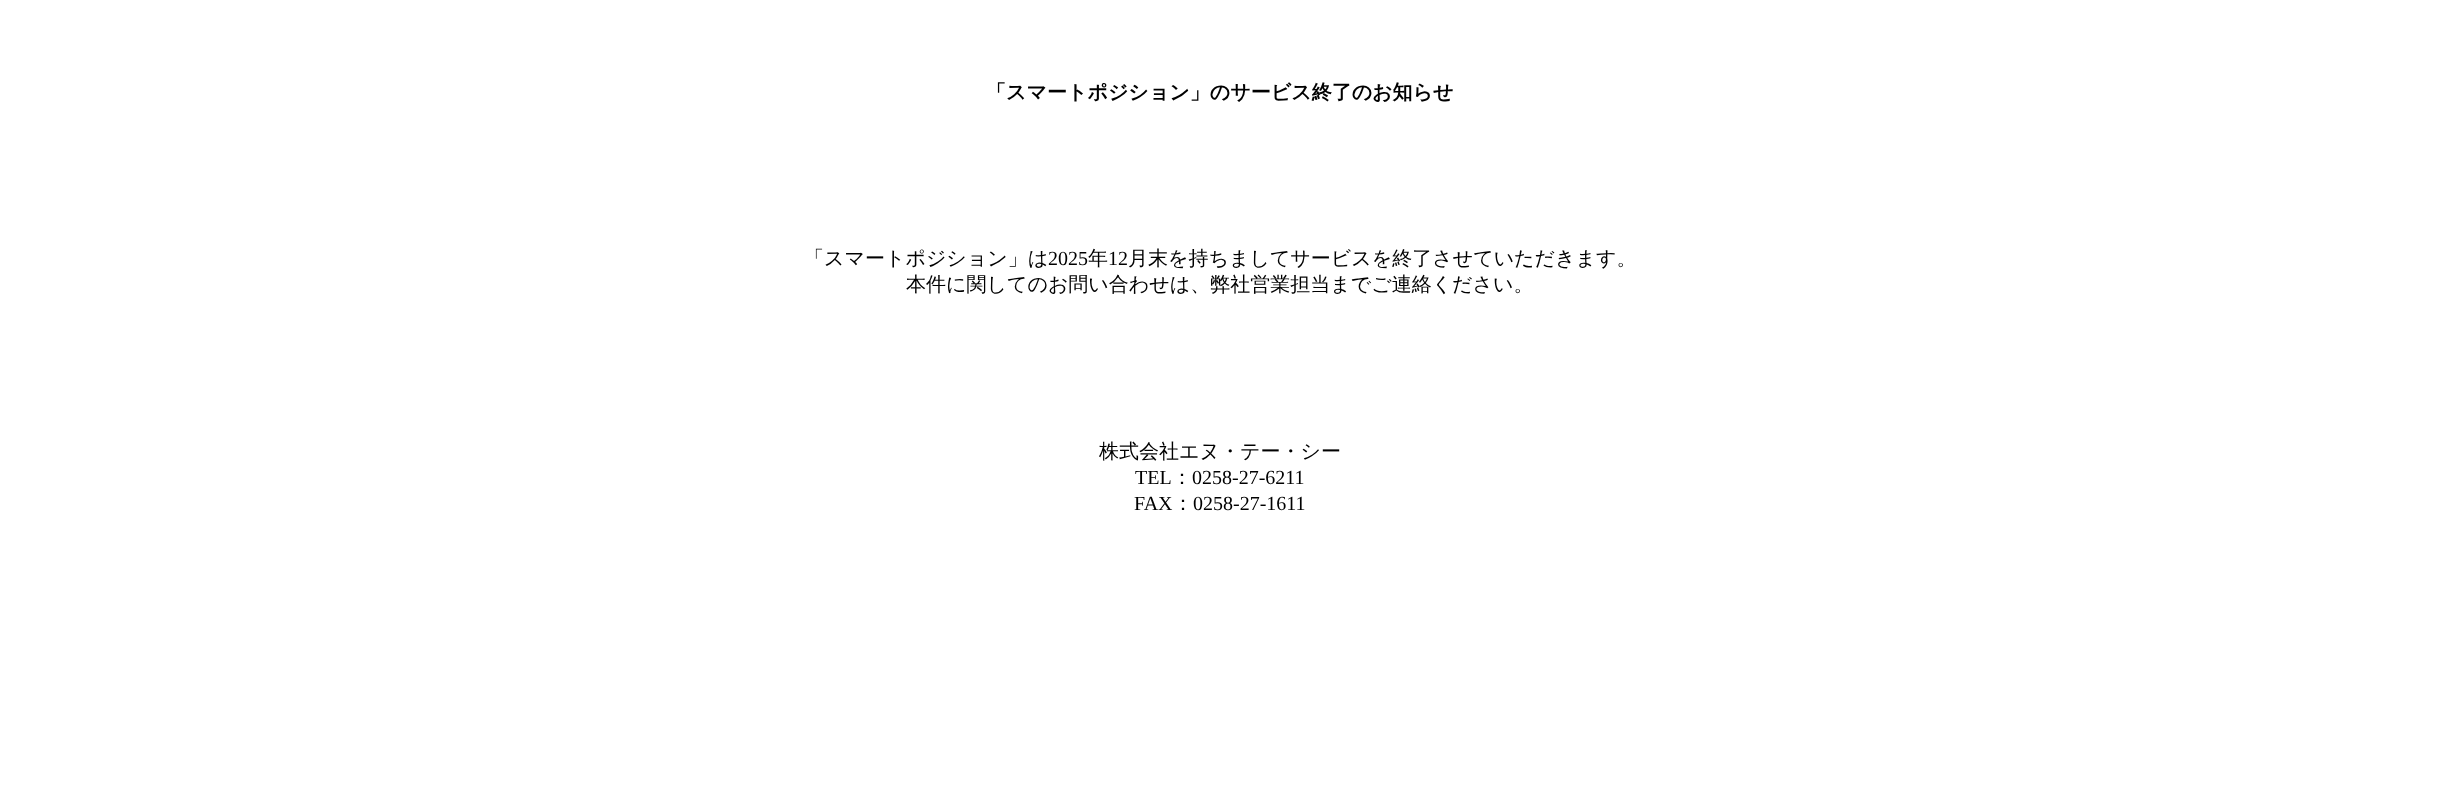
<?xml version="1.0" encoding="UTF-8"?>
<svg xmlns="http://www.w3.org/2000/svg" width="2439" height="802">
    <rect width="100%" height="100%" fill="#FFFFFF"/>
    <text x="986" y="99" font-family="WenQuanYi Zen Hei" font-size="20" font-weight="700" fill="#000000">「スマートポジション」のサービス終了のお知らせ</text>
    <text x="804" y="265" font-family="WenQuanYi Zen Hei" font-size="20" font-weight="500" fill="#000000">「スマートポジション」は</text>
    <text x="1048" y="265" font-family="Liberation Serif" font-size="20" fill="#000000">2025</text>
    <text x="1088" y="265" font-family="WenQuanYi Zen Hei" font-size="20" font-weight="500" fill="#000000">年</text>
    <text x="1108" y="265" font-family="Liberation Serif" font-size="20" fill="#000000">12</text>
    <text x="1128" y="265" font-family="WenQuanYi Zen Hei" font-size="20" font-weight="500" fill="#000000">月末を持ちましてサービスを終了させていただきます。</text>
    <text x="906" y="291" font-family="WenQuanYi Zen Hei" font-size="20" font-weight="500" fill="#000000">本件に関してのお問い合わせは、弊社営業担当までご連絡ください。</text>
    <text x="1099" y="458" font-family="WenQuanYi Zen Hei" font-size="20" font-weight="500" fill="#000000">株式会社エヌ・テー・シー</text>
    <text x="1135" y="484" font-family="Liberation Serif" font-size="20" fill="#000000">TEL</text>
    <text x="1172" y="484" font-family="WenQuanYi Zen Hei" font-size="20" font-weight="500" fill="#000000">：</text>
    <text x="1192" y="484" font-family="Liberation Serif" font-size="20" fill="#000000">0258-27-6211</text>
    <text x="1134" y="510" font-family="Liberation Serif" font-size="20" fill="#000000">FAX</text>
    <text x="1173" y="510" font-family="WenQuanYi Zen Hei" font-size="20" font-weight="500" fill="#000000">：</text>
    <text x="1193" y="510" font-family="Liberation Serif" font-size="20" fill="#000000">0258-27-1611</text>
</svg>
